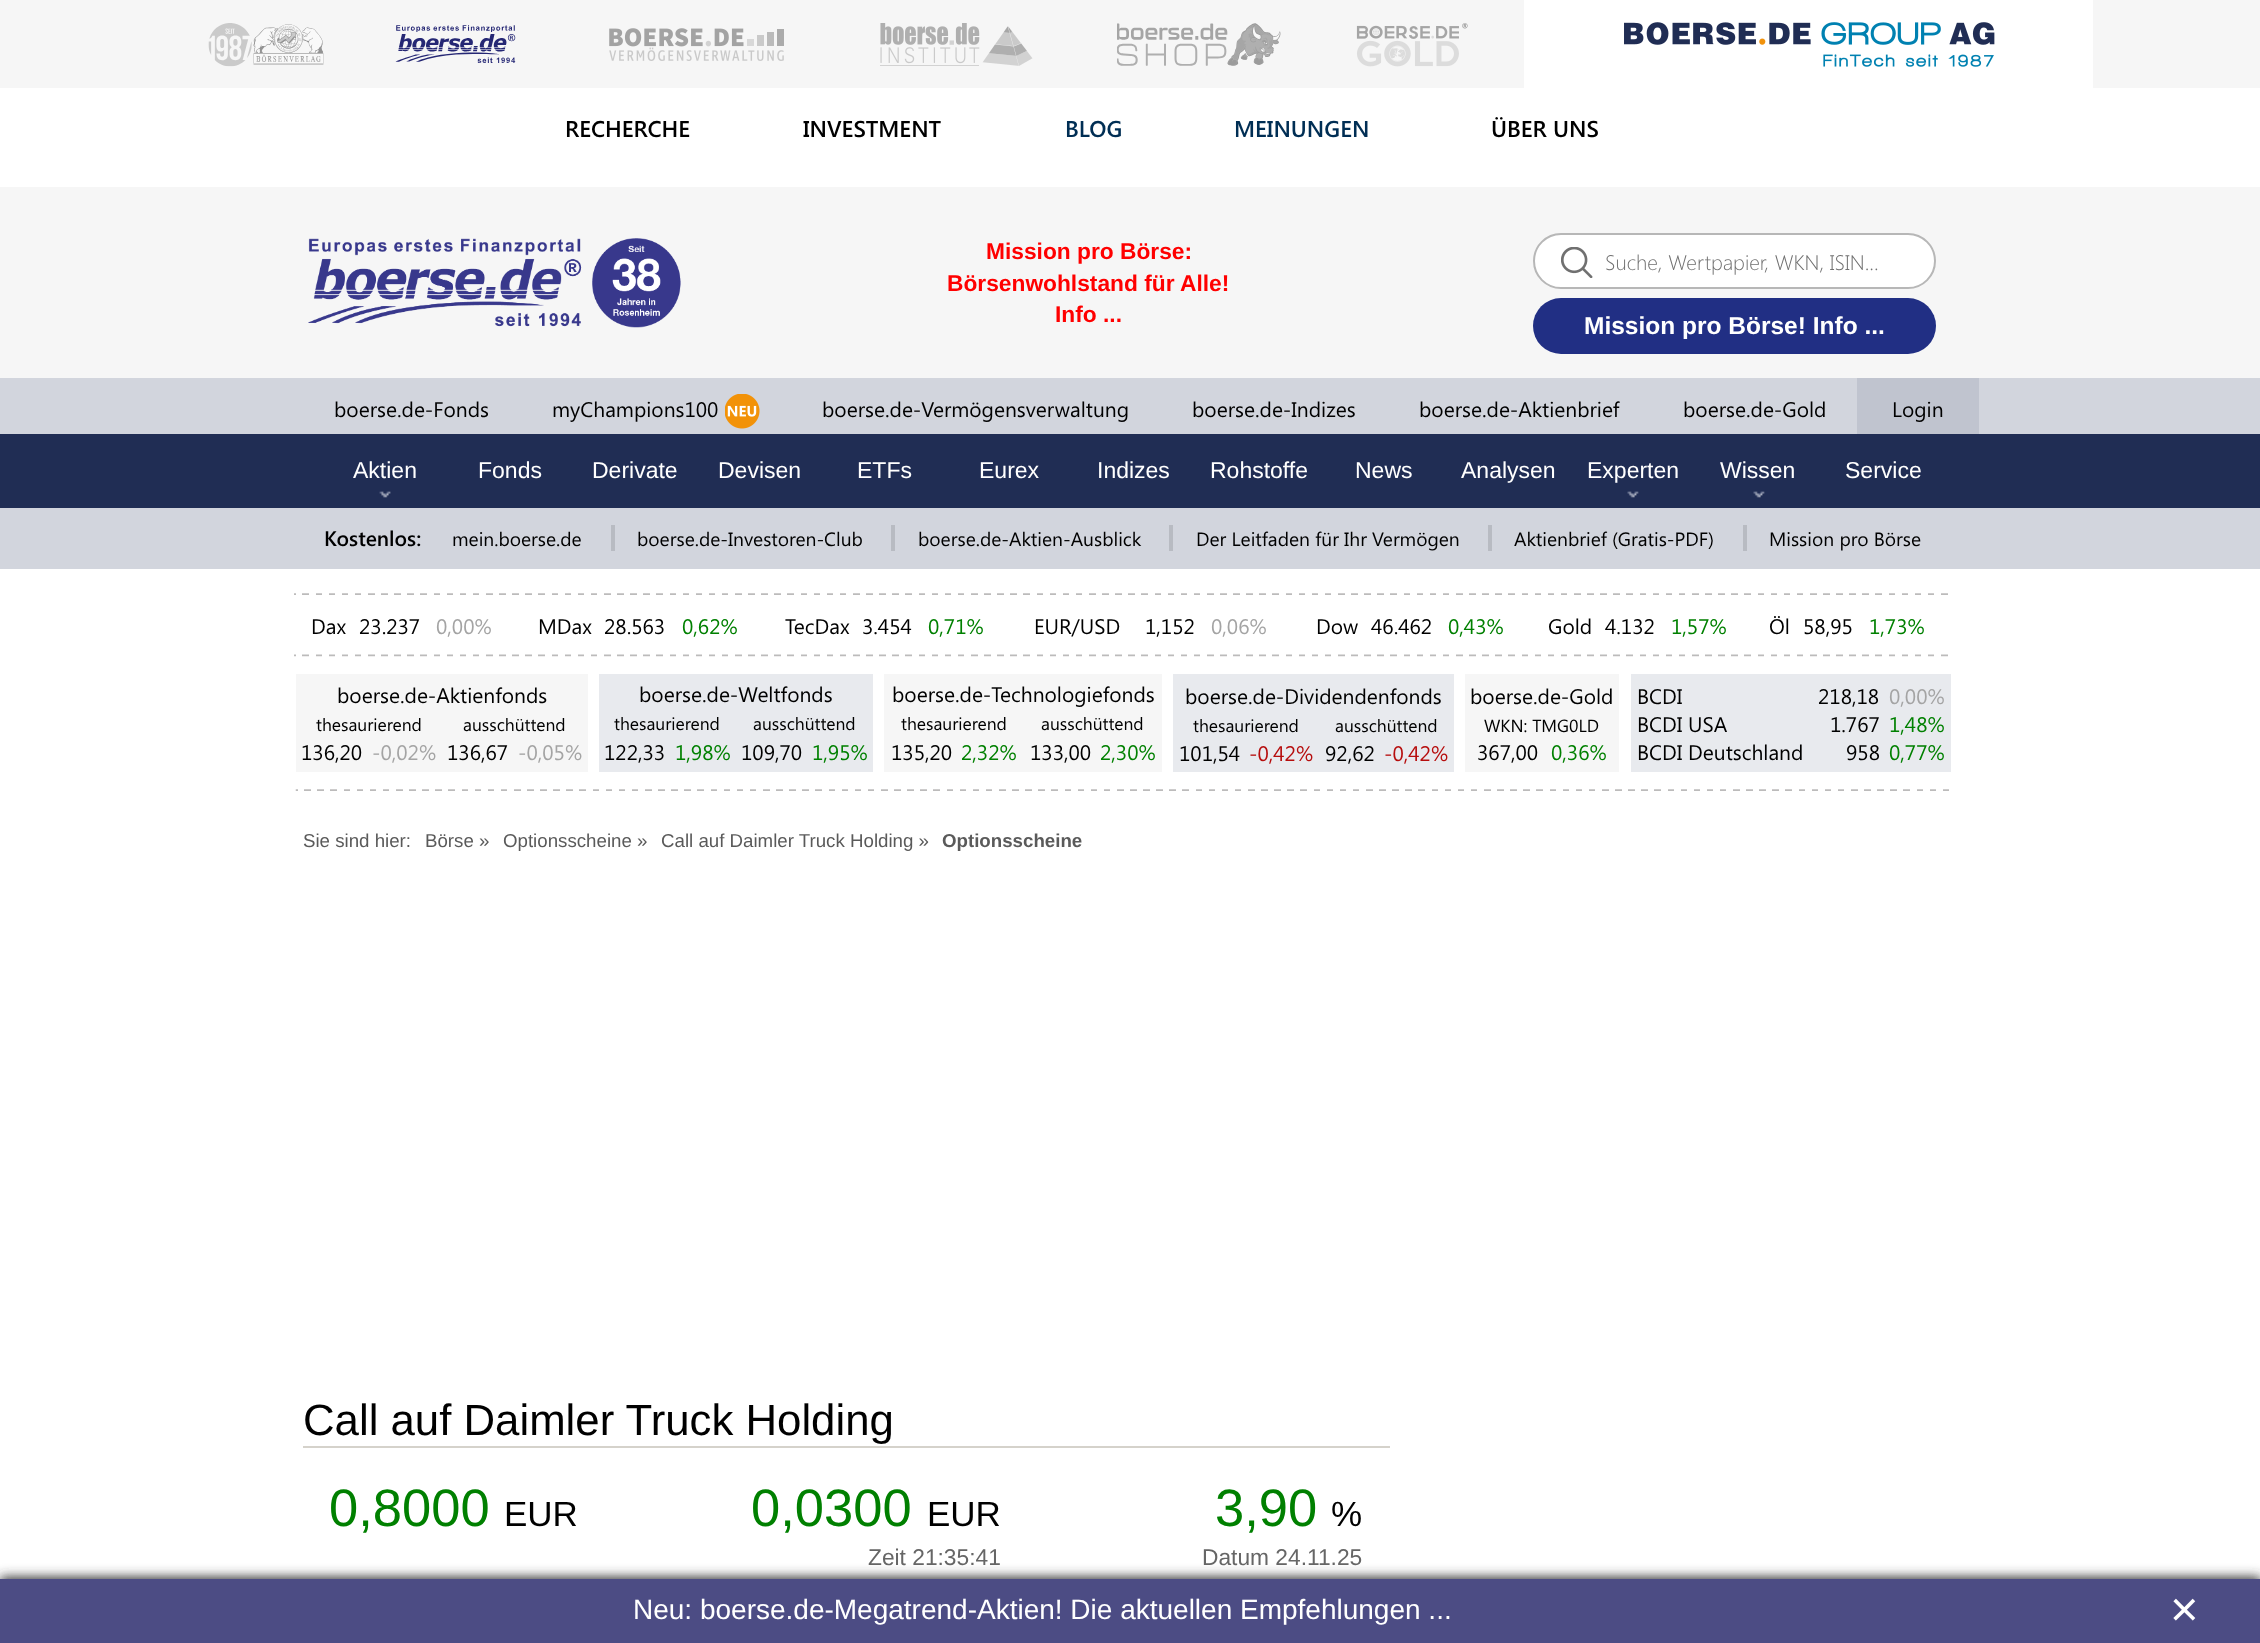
<?xml version="1.0" encoding="UTF-8"?>
<svg xmlns="http://www.w3.org/2000/svg" width="2260" height="1643">
    <defs>
        <filter id="blur1" x="-50%" y="-200%" width="200%" height="500%"><feGaussianBlur stdDeviation="6"/></filter>
    </defs>
    <rect width="100%" height="100%" fill="#FFFFFF"/>
    <rect x="0" y="0" width="2260" height="88" fill="#F6F6F6"/>
    <image x="208" y="23" width="116" height="44" href="img_01.png"/>
    <image x="395" y="25" width="121" height="38" href="img_02.png"/>
    <image x="609" y="28" width="175" height="33" href="img_03.png"/>
    <image x="880" y="23" width="153" height="43" href="img_04.png"/>
    <image x="1117" y="23" width="164" height="43" href="img_05.png"/>
    <image x="1356" y="23" width="112" height="44" href="img_06.png"/>
    <rect x="1524" y="0" width="569" height="88" fill="#FFFFFF"/>
    <image x="1624" y="22" width="371" height="45" href="img_07.png"/>
    <text x="565" y="137" font-family="Segoe UI" font-size="22.75" font-weight="600" fill="#000000">RECHERCHE</text>
    <text x="803" y="137" font-family="Segoe UI" font-size="22.75" font-weight="600" fill="#000000">INVESTMENT</text>
    <text x="1065" y="137" font-family="Segoe UI" font-size="22.75" font-weight="600" fill="#002E54">BLOG</text>
    <text x="1234" y="137" font-family="Segoe UI" font-size="22.75" font-weight="600" fill="#002E54">MEINUNGEN</text>
    <text x="1491" y="137" font-family="Segoe UI" font-size="22.75" font-weight="600" fill="#000000">ÜBER UNS</text>
    <rect x="0" y="187" width="2260" height="191" fill="#F6F6F6"/>
    <image x="308" y="238" width="373" height="90" href="img_08.png"/>
    <text x="986" y="259" font-family="Liberation Sans" font-size="22.75" font-weight="700" fill="#FF0000">Mission pro Börse:</text>
    <text x="947" y="291" font-family="Liberation Sans" font-size="22.75" font-weight="700" fill="#FF0000">Börsenwohlstand für Alle!</text>
    <text x="1055" y="322" font-family="Liberation Sans" font-size="22.75" font-weight="700" fill="#FF0000">Info ...</text>
    <rect x="1534" y="234" width="401" height="54" rx="27" fill="#FFFFFF" stroke="#B7B7B7" stroke-width="2"/>
    <image x="1561" y="247" width="32" height="31" href="img_09.png"/>
    <text x="1605" y="270" font-family="Segoe UI" font-size="21" font-weight="300" fill="#707070">Suche, Wertpapier, WKN, ISIN...</text>
    <rect x="1533" y="298" width="403" height="56" rx="28" fill="#212F84"/>
    <text x="1584" y="334" font-family="Liberation Sans" font-size="24.5" font-weight="700" fill="#FFFFFF">Mission pro Börse! Info ...</text>
    <rect x="0" y="378" width="2260" height="56" fill="#D2D5DD"/>
    <text x="334" y="417" font-family="Segoe UI" font-size="21" fill="#000000">boerse.de-Fonds</text>
    <text x="552" y="417" font-family="Segoe UI" font-size="21" fill="#000000">myChampions100</text>
    <image x="725" y="394" width="35" height="35" href="img_10.png"/>
    <text x="822" y="417" font-family="Segoe UI" font-size="21" fill="#000000">boerse.de-Vermögensverwaltung</text>
    <text x="1192" y="417" font-family="Segoe UI" font-size="21" fill="#000000">boerse.de-Indizes</text>
    <text x="1419" y="417" font-family="Segoe UI" font-size="21" fill="#000000">boerse.de-Aktienbrief</text>
    <text x="1683" y="417" font-family="Segoe UI" font-size="21" fill="#000000">boerse.de-Gold</text>
    <rect x="1857" y="378" width="122" height="56" fill="#C0C4CF"/>
    <text x="1892" y="417" font-family="Segoe UI" font-size="21" fill="#000000">Login</text>
    <rect x="0" y="434" width="2260" height="74" fill="#202D54"/>
    <image x="379" y="491" width="12" height="7" href="img_11.png"/>
    <text x="353" y="478" font-family="Liberation Sans" font-size="23" fill="#FFFFFF">Aktien</text>
    <text x="478" y="478" font-family="Liberation Sans" font-size="23" fill="#FFFFFF">Fonds</text>
    <text x="592" y="478" font-family="Liberation Sans" font-size="23" fill="#FFFFFF">Derivate</text>
    <text x="718" y="478" font-family="Liberation Sans" font-size="23" fill="#FFFFFF">Devisen</text>
    <text x="857" y="478" font-family="Liberation Sans" font-size="23" fill="#FFFFFF">ETFs</text>
    <text x="979" y="478" font-family="Liberation Sans" font-size="23" fill="#FFFFFF">Eurex</text>
    <text x="1097" y="478" font-family="Liberation Sans" font-size="23" fill="#FFFFFF">Indizes</text>
    <text x="1210" y="478" font-family="Liberation Sans" font-size="23" fill="#FFFFFF">Rohstoffe</text>
    <text x="1355" y="478" font-family="Liberation Sans" font-size="23" fill="#FFFFFF">News</text>
    <text x="1461" y="478" font-family="Liberation Sans" font-size="23" fill="#FFFFFF">Analysen</text>
    <image x="1627" y="491" width="12" height="7" href="img_12.png"/>
    <text x="1587" y="478" font-family="Liberation Sans" font-size="23" fill="#FFFFFF">Experten</text>
    <image x="1753" y="491" width="12" height="7" href="img_12.png"/>
    <text x="1720" y="478" font-family="Liberation Sans" font-size="23" fill="#FFFFFF">Wissen</text>
    <text x="1845" y="478" font-family="Liberation Sans" font-size="23" fill="#FFFFFF">Service</text>
    <rect x="0" y="508" width="2260" height="61" fill="#D2D5DD"/>
    <text x="324" y="546" font-family="Segoe UI" font-size="21" font-weight="600" fill="#000000">Kostenlos:</text>
    <text x="452" y="546" font-family="Segoe UI" font-size="19.25" fill="#000000">mein.boerse.de</text>
    <rect x="611" y="525" width="4" height="26" fill="#B8BBC2"/>
    <text x="637" y="546" font-family="Segoe UI" font-size="19.25" fill="#000000">boerse.de-Investoren-Club</text>
    <rect x="891" y="525" width="4" height="26" fill="#B8BBC2"/>
    <text x="918" y="546" font-family="Segoe UI" font-size="19.25" fill="#000000">boerse.de-Aktien-Ausblick</text>
    <rect x="1169" y="525" width="4" height="26" fill="#B8BBC2"/>
    <text x="1196" y="546" font-family="Segoe UI" font-size="19.25" fill="#000000">Der Leitfaden für Ihr Vermögen</text>
    <rect x="1488" y="525" width="4" height="26" fill="#B8BBC2"/>
    <text x="1514" y="546" font-family="Segoe UI" font-size="19.25" fill="#000000">Aktienbrief (Gratis-PDF)</text>
    <rect x="1743" y="525" width="4" height="26" fill="#B8BBC2"/>
    <text x="1769" y="546" font-family="Segoe UI" font-size="19.25" fill="#000000">Mission pro Börse</text>
    <image x="294" y="593" width="1654" height="64" href="img_13.png"/>
    <text x="311" y="634" font-family="Segoe UI" font-size="21" fill="#000000">Dax</text>
    <text x="359" y="634" font-family="Segoe UI" font-size="21" fill="#000000">23.237</text>
    <text x="436" y="634" font-family="Segoe UI" font-size="21" fill="#A4A4A4">0,00%</text>
    <text x="538" y="634" font-family="Segoe UI" font-size="21" fill="#000000">MDax</text>
    <text x="604" y="634" font-family="Segoe UI" font-size="21" fill="#000000">28.563</text>
    <text x="682" y="634" font-family="Segoe UI" font-size="21" fill="#008000">0,62%</text>
    <text x="785" y="634" font-family="Segoe UI" font-size="21" fill="#000000">TecDax</text>
    <text x="862" y="634" font-family="Segoe UI" font-size="21" fill="#000000">3.454</text>
    <text x="928" y="634" font-family="Segoe UI" font-size="21" fill="#008000">0,71%</text>
    <text x="1034" y="634" font-family="Segoe UI" font-size="21" fill="#000000">EUR/USD</text>
    <text x="1145" y="634" font-family="Segoe UI" font-size="21" fill="#000000">1,152</text>
    <text x="1211" y="634" font-family="Segoe UI" font-size="21" fill="#A4A4A4">0,06%</text>
    <text x="1316" y="634" font-family="Segoe UI" font-size="21" fill="#000000">Dow</text>
    <text x="1371" y="634" font-family="Segoe UI" font-size="21" fill="#000000">46.462</text>
    <text x="1448" y="634" font-family="Segoe UI" font-size="21" fill="#008000">0,43%</text>
    <text x="1548" y="634" font-family="Segoe UI" font-size="21" fill="#000000">Gold</text>
    <text x="1605" y="634" font-family="Segoe UI" font-size="21" fill="#000000">4.132</text>
    <text x="1671" y="634" font-family="Segoe UI" font-size="21" fill="#008000">1,57%</text>
    <text x="1769" y="634" font-family="Segoe UI" font-size="21" fill="#000000">Öl</text>
    <text x="1803" y="634" font-family="Segoe UI" font-size="21" fill="#000000">58,95</text>
    <text x="1869" y="634" font-family="Segoe UI" font-size="21" fill="#008000">1,73%</text>
    <image x="295" y="789" width="1654" height="2" href="img_14.png"/>
    <rect x="296" y="674" width="292" height="98" fill="#F6F6F6"/>
    <text x="337" y="703" font-family="Segoe UI" font-size="21" fill="#000000">boerse.de-Aktienfonds</text>
    <text x="316" y="731" font-family="Segoe UI" font-size="17.5" fill="#000000">thesaurierend</text>
    <text x="301" y="760" font-family="Segoe UI" font-size="21" fill="#000000">136,20</text>
    <text x="372" y="760" font-family="Segoe UI" font-size="21" fill="#A4A4A4">-0,02%</text>
    <text x="463" y="731" font-family="Segoe UI" font-size="17.5" fill="#000000">ausschüttend</text>
    <text x="447" y="760" font-family="Segoe UI" font-size="21" fill="#000000">136,67</text>
    <text x="518" y="760" font-family="Segoe UI" font-size="21" fill="#A4A4A4">-0,05%</text>
    <rect x="599" y="674" width="274" height="98" fill="#E8EAEE"/>
    <text x="639" y="702" font-family="Segoe UI" font-size="21" fill="#000000">boerse.de-Weltfonds</text>
    <text x="614" y="730" font-family="Segoe UI" font-size="17.5" fill="#000000">thesaurierend</text>
    <text x="604" y="760" font-family="Segoe UI" font-size="21" fill="#000000">122,33</text>
    <text x="675" y="760" font-family="Segoe UI" font-size="21" fill="#008000">1,98%</text>
    <text x="753" y="730" font-family="Segoe UI" font-size="17.5" fill="#000000">ausschüttend</text>
    <text x="741" y="760" font-family="Segoe UI" font-size="21" fill="#000000">109,70</text>
    <text x="812" y="760" font-family="Segoe UI" font-size="21" fill="#008000">1,95%</text>
    <rect x="884" y="674" width="278" height="98" fill="#F6F6F6"/>
    <text x="892" y="702" font-family="Segoe UI" font-size="21" fill="#000000">boerse.de-Technologiefonds</text>
    <text x="901" y="730" font-family="Segoe UI" font-size="17.5" fill="#000000">thesaurierend</text>
    <text x="891" y="760" font-family="Segoe UI" font-size="21" fill="#000000">135,20</text>
    <text x="961" y="760" font-family="Segoe UI" font-size="21" fill="#008000">2,32%</text>
    <text x="1041" y="730" font-family="Segoe UI" font-size="17.5" fill="#000000">ausschüttend</text>
    <text x="1030" y="760" font-family="Segoe UI" font-size="21" fill="#000000">133,00</text>
    <text x="1100" y="760" font-family="Segoe UI" font-size="21" fill="#008000">2,30%</text>
    <rect x="1173" y="674" width="281" height="98" fill="#E8EAEE"/>
    <text x="1185" y="704" font-family="Segoe UI" font-size="21" fill="#000000">boerse.de-Dividendenfonds</text>
    <text x="1193" y="732" font-family="Segoe UI" font-size="17.5" fill="#000000">thesaurierend</text>
    <text x="1179" y="761" font-family="Segoe UI" font-size="21" fill="#000000">101,54</text>
    <text x="1249" y="761" font-family="Segoe UI" font-size="21" fill="#B60D0D">-0,42%</text>
    <text x="1335" y="732" font-family="Segoe UI" font-size="17.5" fill="#000000">ausschüttend</text>
    <text x="1325" y="761" font-family="Segoe UI" font-size="21" fill="#000000">92,62</text>
    <text x="1384" y="761" font-family="Segoe UI" font-size="21" fill="#B60D0D">-0,42%</text>
    <rect x="1465" y="674" width="154" height="98" fill="#F6F6F6"/>
    <text x="1470" y="704" font-family="Segoe UI" font-size="21" fill="#000000">boerse.de-Gold</text>
    <text x="1484" y="732" font-family="Segoe UI" font-size="17.5" fill="#000000">WKN: TMG0LD</text>
    <text x="1477" y="760" font-family="Segoe UI" font-size="21" fill="#000000">367,00</text>
    <text x="1551" y="760" font-family="Segoe UI" font-size="21" fill="#008000">0,36%</text>
    <rect x="1631" y="674" width="320" height="98" fill="#E8EAEE"/>
    <text x="1637" y="704" font-family="Segoe UI" font-size="21" fill="#000000">BCDI</text>
    <text x="1818" y="704" font-family="Segoe UI" font-size="21" fill="#000000">218,18</text>
    <text x="1889" y="704" font-family="Segoe UI" font-size="21" fill="#A4A4A4">0,00%</text>
    <text x="1637" y="732" font-family="Segoe UI" font-size="21" fill="#000000">BCDI USA</text>
    <text x="1830" y="732" font-family="Segoe UI" font-size="21" fill="#000000">1.767</text>
    <text x="1889" y="732" font-family="Segoe UI" font-size="21" fill="#008000">1,48%</text>
    <text x="1637" y="760" font-family="Segoe UI" font-size="21" fill="#000000">BCDI Deutschland</text>
    <text x="1846" y="760" font-family="Segoe UI" font-size="21" fill="#000000">958</text>
    <text x="1889" y="760" font-family="Segoe UI" font-size="21" fill="#008000">0,77%</text>
    <text x="303" y="847" font-family="Liberation Sans" font-size="18.7" fill="#5A5A5A">Sie sind hier:</text>
    <text x="425" y="847" font-family="Liberation Sans" font-size="18.7" fill="#5A5A5A">Börse »</text>
    <text x="503" y="847" font-family="Liberation Sans" font-size="18.7" fill="#5A5A5A">Optionsscheine »</text>
    <text x="661" y="847" font-family="Liberation Sans" font-size="18.7" fill="#5A5A5A">Call auf Daimler Truck Holding »</text>
    <text x="942" y="847" font-family="Liberation Sans" font-size="18.7" font-weight="700" fill="#5A5A5A">Optionsscheine</text>
    <rect x="303" y="1446" width="1087" height="2" fill="#D5D2CB"/>
    <text x="303" y="1435" font-family="Liberation Sans" font-size="43.75" fill="#000000">Call auf Daimler Truck Holding</text>
    <text x="329" y="1526" font-family="Liberation Sans" font-size="52.5" fill="#008000">0,8000</text>
    <text x="504" y="1526" font-family="Liberation Sans" font-size="35" fill="#000000">EUR</text>
    <text x="751" y="1526" font-family="Liberation Sans" font-size="52.5" fill="#008000">0,0300</text>
    <text x="927" y="1526" font-family="Liberation Sans" font-size="35" fill="#000000">EUR</text>
    <text x="868" y="1565" font-family="Liberation Sans" font-size="22.75" fill="#666666">Zeit 21:35:41</text>
    <text x="1215" y="1526" font-family="Liberation Sans" font-size="52.5" fill="#008000">3,90</text>
    <text x="1331" y="1526" font-family="Liberation Sans" font-size="35" fill="#000000">%</text>
    <text x="1202" y="1565" font-family="Liberation Sans" font-size="22.75" fill="#666666">Datum 24.11.25</text>
    <rect x="0" y="1577" width="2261" height="65" fill="#323232" filter="url(#blur1)"/>
    <rect x="0" y="1579" width="2260" height="64" fill="#4C4C84"/>
    <text x="633" y="1619" font-family="Liberation Sans" font-size="28" fill="#FFFFFF">Neu: boerse.de-Megatrend-Aktien! Die aktuellen Empfehlungen ...</text>
    <text x="2170" y="1626" font-family="Liberation Sans" font-size="49" fill="#FFFFFF">×</text>
</svg>
